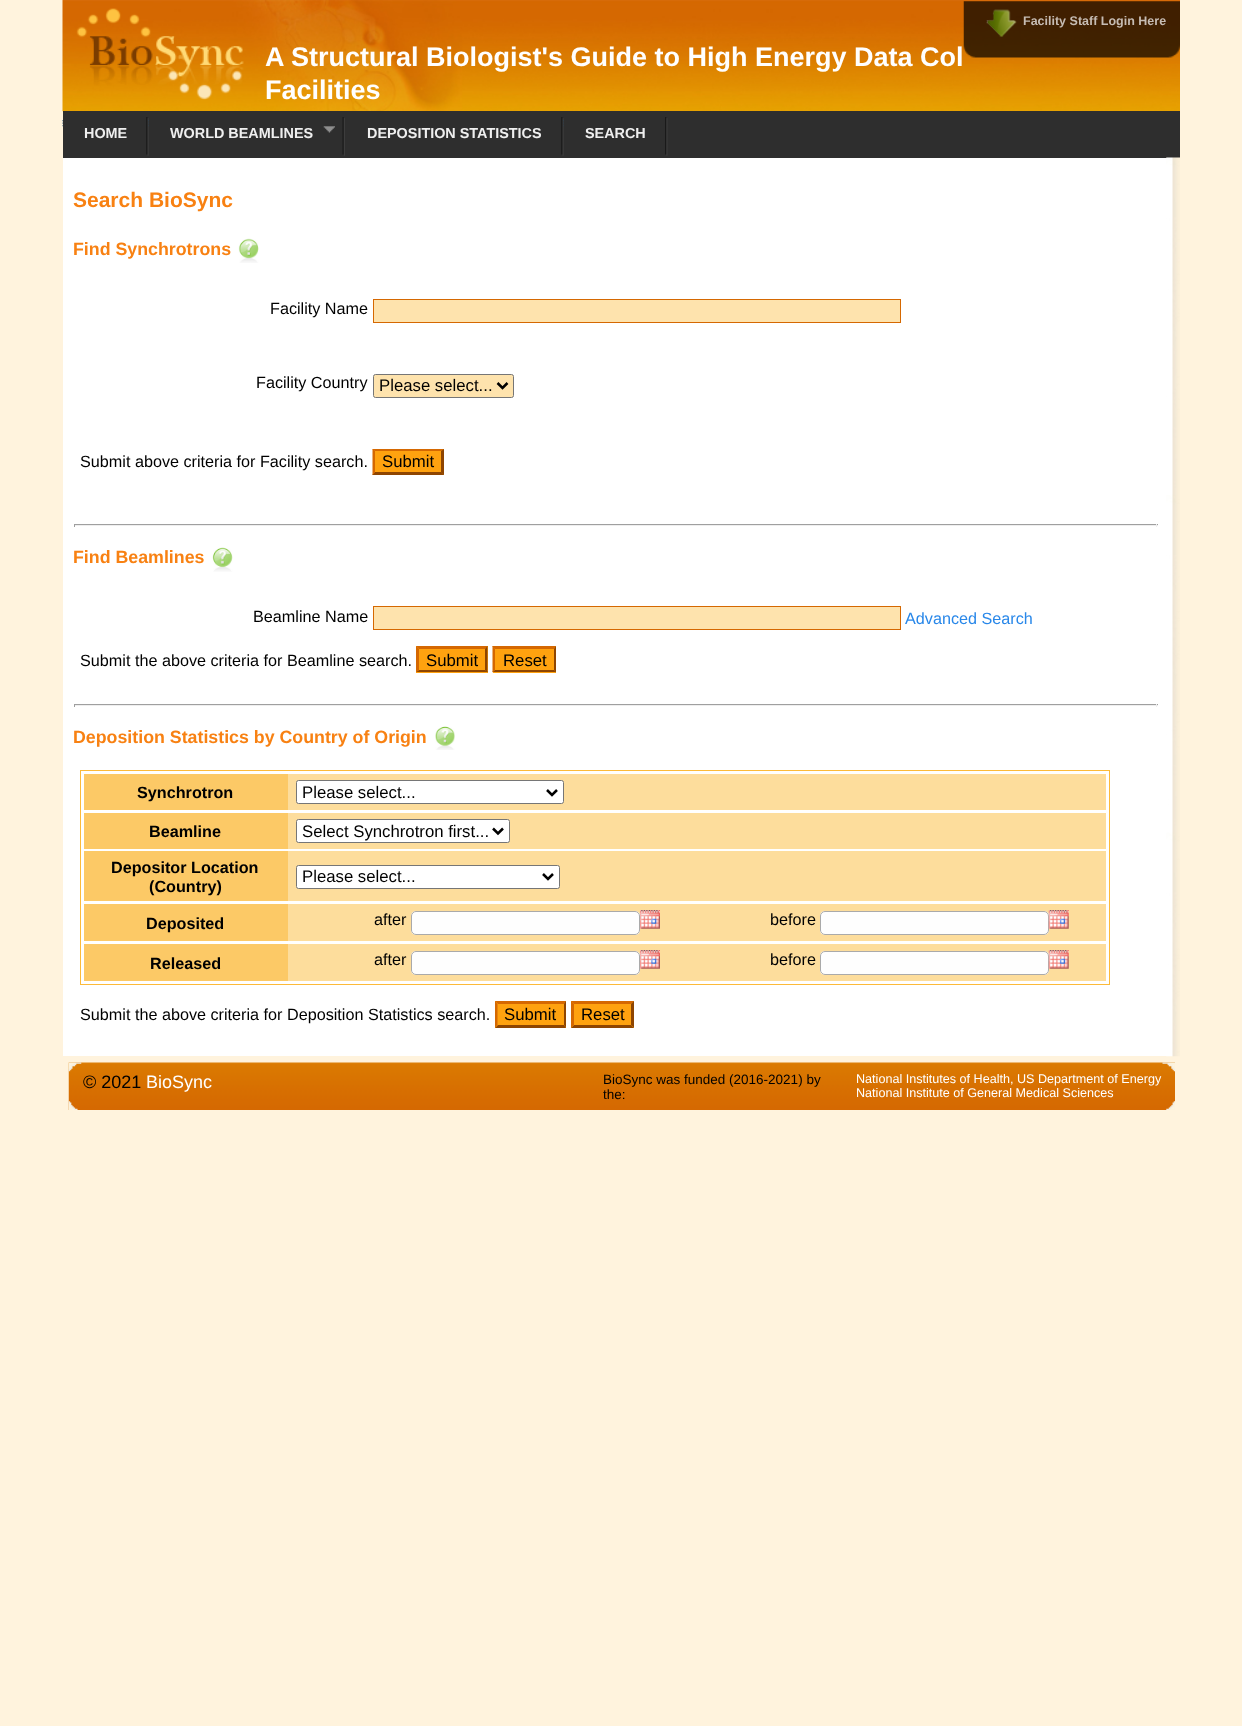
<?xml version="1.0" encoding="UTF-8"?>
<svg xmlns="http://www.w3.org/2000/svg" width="1242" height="1726">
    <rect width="100%" height="100%" fill="#FFF3DD"/>
    <image x="62" y="0" width="1118" height="112" href="img_03.png"/>
    <image x="963" y="1" width="217" height="57" href="img_01.png"/>
    <image x="986" y="9" width="31" height="28" href="img_02.png"/>
    <text x="1023" y="25" font-family="Liberation Sans" font-size="12.5" font-weight="700" fill="#C6BCB3">Facility Staff Login Here</text>
    <image x="76" y="8" width="168" height="92" href="img_04.png"/>
    <text font-family="Liberation Sans" font-size="27" font-weight="700" fill="#FFFFFF">
        <tspan x="265" y="66">A Structural Biologist's Guide to High Energy Data Col</tspan>
        <tspan x="265" y="99">Facilities</tspan>
    </text>
    <rect x="668" y="111" width="512" height="47" fill="#2E2E2E"/>
    <image x="62" y="120" width="1" height="7" href="img_05.png"/>
    <rect x="63" y="111" width="605" height="47" fill="#2E2E2E"/>
    <image x="146" y="117" width="3" height="39" href="img_06.png"/>
    <text x="84" y="138" font-family="Liberation Sans" font-size="14.4" font-weight="700" fill="#EFEFEF">HOME</text>
    <image x="148" y="120" width="1" height="7" href="img_07.png"/>
    <image x="342" y="117" width="3" height="39" href="img_08.png"/>
    <text x="170" y="138" font-family="Liberation Sans" font-size="14.4" font-weight="700" fill="#EFEFEF">WORLD BEAMLINES</text>
    <image x="323" y="126" width="12" height="7" href="img_09.png"/>
    <image x="561" y="117" width="3" height="39" href="img_06.png"/>
    <text x="367" y="138" font-family="Liberation Sans" font-size="14.4" font-weight="700" fill="#EFEFEF">DEPOSITION STATISTICS</text>
    <image x="563" y="120" width="1" height="7" href="img_07.png"/>
    <image x="665" y="117" width="3" height="39" href="img_10.png"/>
    <text x="585" y="138" font-family="Liberation Sans" font-size="14.4" font-weight="700" fill="#EFEFEF">SEARCH</text>
    <rect x="63" y="158" width="1104" height="898" fill="#FFFFFF"/>
    <image x="1166" y="157" width="14" height="900" href="img_11.png"/>
    <text x="73" y="207" font-family="Liberation Sans" font-size="21" font-weight="700" fill="#F88112">Search BioSync</text>
    <text x="73" y="255" font-family="Liberation Sans" font-size="17.8" font-weight="700" fill="#F88112">Find Synchrotrons</text>
    <image x="238" y="238" width="21" height="25" href="img_12.png"/>
    <text x="270" y="314" font-family="Liberation Sans" font-size="16.2" fill="#000000">Facility Name</text>
    <rect x="373.5" y="299.5" width="527" height="23" fill="#FEE3AD" stroke="#D56801"/>
    <text x="256" y="388" font-family="Liberation Sans" font-size="16.2" fill="#000000">Facility Country</text>
    <rect x="373.5" y="374.5" width="140" height="23" rx="2" fill="#FEE3AD" stroke="#767676"/>
    <path d="M 497.5 383 L 502.5 388 L 507.5 383" fill="none" stroke="#000000" stroke-width="2.5"/>
    <text x="379" y="391" font-family="Liberation Sans" font-size="16.75" fill="#000000">Please select...</text>
    <text x="80" y="467" font-family="Liberation Sans" font-size="16.2" fill="#000000">Submit above criteria for Facility search.</text>
    <rect x="373" y="449" width="71" height="26" fill="#FFA20F"/>
    <path d="M 372 449 H 444 L 441 451 H 375 Z" fill="#D56801"/>
    <path d="M 444 449 V 475 L 441 472.5 V 451 Z" fill="#8E4501"/>
    <path d="M 444 475 H 372 L 375 472 H 441 Z" fill="#8E4501"/>
    <path d="M 372.5 475 V 449 L 375 451 V 472.5 Z" fill="#D56801"/>
    <text x="382" y="467" font-family="Liberation Sans" font-size="16.75" fill="#000000">Submit</text>
    <rect x="74" y="524" width="1084" height="1" fill="#9F9F9F"/>
    <rect x="1156" y="524" width="1" height="3" fill="#EEEEEE"/>
    <rect x="74" y="525" width="1084" height="1" fill="#EEEEEE"/>
    <rect x="74" y="524" width="1" height="3" fill="#9F9F9F"/>
    <text x="73" y="563" font-family="Liberation Sans" font-size="17.8" font-weight="700" fill="#F88112">Find Beamlines</text>
    <image x="212" y="547" width="21" height="25" href="img_13.png"/>
    <text x="253" y="622" font-family="Liberation Sans" font-size="16.2" fill="#000000">Beamline Name</text>
    <rect x="373.5" y="606.5" width="527" height="23" fill="#FEE3AD" stroke="#D56801"/>
    <text x="905" y="624" font-family="Liberation Sans" font-size="16.2" fill="#2887E9">Advanced Search</text>
    <text x="80" y="666" font-family="Liberation Sans" font-size="16.2" fill="#000000">Submit the above criteria for Beamline search.</text>
    <rect x="416" y="646" width="72" height="27" fill="#FFA20F"/>
    <path d="M 416 646 H 488 L 485 649 H 419 Z" fill="#D56801"/>
    <path d="M 487.5 646 V 672.5 L 485 670 V 649 Z" fill="#8E4501"/>
    <path d="M 488 672 H 416 L 419 670 H 485 Z" fill="#8E4501"/>
    <path d="M 416 672.5 V 646 L 419 649 V 670 Z" fill="#D56801"/>
    <text x="426" y="666" font-family="Liberation Sans" font-size="16.75" fill="#000000">Submit</text>
    <rect x="493" y="646" width="63" height="27" fill="#FFA20F"/>
    <path d="M 492 646 H 556 L 554 649 H 495 Z" fill="#D56801"/>
    <path d="M 556 646 V 672.5 L 554 670 V 649 Z" fill="#8E4501"/>
    <path d="M 556 672 H 492 L 495 670 H 554 Z" fill="#8E4501"/>
    <path d="M 492.5 672.5 V 646 L 495 649 V 670 Z" fill="#D56801"/>
    <text x="503" y="666" font-family="Liberation Sans" font-size="16.75" fill="#000000">Reset</text>
    <rect x="74" y="704" width="1084" height="1" fill="#9F9F9F"/>
    <rect x="1156" y="704" width="1" height="3" fill="#EEEEEE"/>
    <rect x="74" y="705" width="1084" height="1" fill="#EEEEEE"/>
    <rect x="74" y="704" width="1" height="3" fill="#9F9F9F"/>
    <text x="73" y="743" font-family="Liberation Sans" font-size="17.8" font-weight="700" fill="#F88112">Deposition Statistics by Country of Origin</text>
    <image x="435" y="726" width="20" height="24" href="img_14.png"/>
    <rect x="80.5" y="770.5" width="1029" height="214" fill="none" stroke="#FCBA39"/>
    <rect x="288" y="774" width="818" height="36" fill="#FDDD9C"/>
    <rect x="84" y="774" width="204" height="36" fill="#FCC966"/>
    <text x="137" y="798" font-family="Liberation Sans" font-size="16.2" font-weight="700" fill="#000000">Synchrotron</text>
    <rect x="296.5" y="780.5" width="267" height="23" rx="2" fill="#FFFFFF" stroke="#767676"/>
    <path d="M 547 790 L 552 795 L 557 790" fill="none" stroke="#000000" stroke-width="2.5"/>
    <text x="302" y="798" font-family="Liberation Sans" font-size="16.75" fill="#000000">Please select...</text>
    <rect x="288" y="813" width="818" height="36" fill="#FDDD9C"/>
    <rect x="84" y="813" width="204" height="36" fill="#FCC966"/>
    <text x="149" y="837" font-family="Liberation Sans" font-size="16.2" font-weight="700" fill="#000000">Beamline</text>
    <rect x="296.5" y="819.5" width="213" height="23" rx="2" fill="#FFFFFF" stroke="#767676"/>
    <path d="M 493 828.5 L 498 833.5 L 503 828.5" fill="none" stroke="#000000" stroke-width="2.5"/>
    <text x="302" y="837" font-family="Liberation Sans" font-size="16.75" fill="#000000">Select Synchrotron first...</text>
    <rect x="288" y="851" width="818" height="50" fill="#FDDD9C"/>
    <rect x="84" y="851" width="204" height="50" fill="#FCC966"/>
    <text x="111" y="873" font-family="Liberation Sans" font-size="16.2" font-weight="700" fill="#000000">Depositor Location</text>
    <text x="149" y="892" font-family="Liberation Sans" font-size="16.2" font-weight="700" fill="#000000">(Country)</text>
    <rect x="296.5" y="865.5" width="263" height="23" rx="2" fill="#FFFFFF" stroke="#767676"/>
    <path d="M 543 874 L 548 879 L 553 874" fill="none" stroke="#000000" stroke-width="2.5"/>
    <text x="302" y="882" font-family="Liberation Sans" font-size="16.75" fill="#000000">Please select...</text>
    <rect x="288" y="904" width="818" height="37" fill="#FDDD9C"/>
    <rect x="84" y="904" width="204" height="37" fill="#FCC966"/>
    <text x="146" y="929" font-family="Liberation Sans" font-size="16.2" font-weight="700" fill="#000000">Deposited</text>
    <text x="374" y="925" font-family="Liberation Sans" font-size="16.2" fill="#000000">after</text>
    <rect x="411" y="911" width="229" height="24" rx="5" fill="#FFFFFF"/>
    <image x="411" y="912" width="229" height="23" href="img_15.png"/>
    <rect x="411.5" y="911.5" width="228" height="23" rx="4.5" fill="none" stroke="#AAAAAA"/>
    <image x="640" y="910" width="20" height="19" href="img_16.png"/>
    <text x="770" y="925" font-family="Liberation Sans" font-size="16.2" fill="#000000">before</text>
    <rect x="820" y="911" width="229" height="24" rx="5" fill="#FFFFFF"/>
    <image x="820" y="912" width="229" height="23" href="img_17.png"/>
    <rect x="820.5" y="911.5" width="228" height="23" rx="4.5" fill="none" stroke="#AAAAAA"/>
    <image x="1048" y="910" width="21" height="19" href="img_18.png"/>
    <rect x="288" y="944" width="818" height="37" fill="#FDDD9C"/>
    <rect x="84" y="944" width="204" height="37" fill="#FCC966"/>
    <text x="150" y="969" font-family="Liberation Sans" font-size="16.2" font-weight="700" fill="#000000">Released</text>
    <text x="374" y="965" font-family="Liberation Sans" font-size="16.2" fill="#000000">after</text>
    <rect x="411" y="951" width="229" height="24" rx="5" fill="#FFFFFF"/>
    <image x="411" y="952" width="229" height="23" href="img_15.png"/>
    <rect x="411.5" y="951.5" width="228" height="23" rx="4.5" fill="none" stroke="#AAAAAA"/>
    <image x="640" y="950" width="20" height="19" href="img_16.png"/>
    <text x="770" y="965" font-family="Liberation Sans" font-size="16.2" fill="#000000">before</text>
    <rect x="820" y="951" width="229" height="24" rx="5" fill="#FFFFFF"/>
    <image x="820" y="952" width="229" height="23" href="img_17.png"/>
    <rect x="820.5" y="951.5" width="228" height="23" rx="4.5" fill="none" stroke="#AAAAAA"/>
    <image x="1048" y="950" width="21" height="19" href="img_18.png"/>
    <text x="80" y="1020" font-family="Liberation Sans" font-size="16.2" fill="#000000">Submit the above criteria for Deposition Statistics search.</text>
    <rect x="495" y="1001" width="71" height="27" fill="#FFA20F"/>
    <path d="M 495 1001 H 566 L 564 1004 H 498 Z" fill="#D56801"/>
    <path d="M 566 1001 V 1027.5 L 564 1025 V 1004 Z" fill="#8E4501"/>
    <path d="M 566 1028 H 495 L 498 1025 H 564 Z" fill="#8E4501"/>
    <path d="M 495 1027.5 V 1001 L 497.5 1004 V 1025 Z" fill="#D56801"/>
    <text x="504" y="1020" font-family="Liberation Sans" font-size="16.75" fill="#000000">Submit</text>
    <rect x="571" y="1001" width="63" height="27" fill="#FFA20F"/>
    <path d="M 571 1001 H 634 L 631 1004 H 574 Z" fill="#D56801"/>
    <path d="M 634 1001 V 1027.5 L 631 1025 V 1004 Z" fill="#8E4501"/>
    <path d="M 634 1028 H 571 L 574 1025 H 631 Z" fill="#8E4501"/>
    <path d="M 571 1027.5 V 1001 L 574 1004 V 1025 Z" fill="#D56801"/>
    <text x="581" y="1020" font-family="Liberation Sans" font-size="16.75" fill="#000000">Reset</text>
    <image x="68" y="1062" width="1107" height="48" href="img_19.png"/>
    <image x="1162" y="1062" width="13" height="10" href="img_20.png"/>
    <image x="68" y="1062" width="14" height="10" href="img_21.png"/>
    <text x="83" y="1088" font-family="Liberation Sans" font-size="18" fill="#000000">© 2021</text>
    <text x="146" y="1088" font-family="Liberation Sans" font-size="18" fill="#FFFFFF">BioSync</text>
    <text font-family="Liberation Sans" font-size="13.5" fill="#000000">
        <tspan x="603" y="1084">BioSync was funded (2016-2021) by</tspan>
        <tspan x="603" y="1099">the:</tspan>
    </text>
    <text font-family="Liberation Sans" font-size="12.6" fill="#FFFFFF">
        <tspan x="856" y="1083">National Institutes of Health, US Department of Energy</tspan>
        <tspan x="856" y="1097">National Institute of General Medical Sciences</tspan>
    </text>
    <image x="1166" y="1101" width="9" height="9" href="img_22.png"/>
    <image x="68" y="1101" width="10" height="9" href="img_23.png"/>
</svg>
